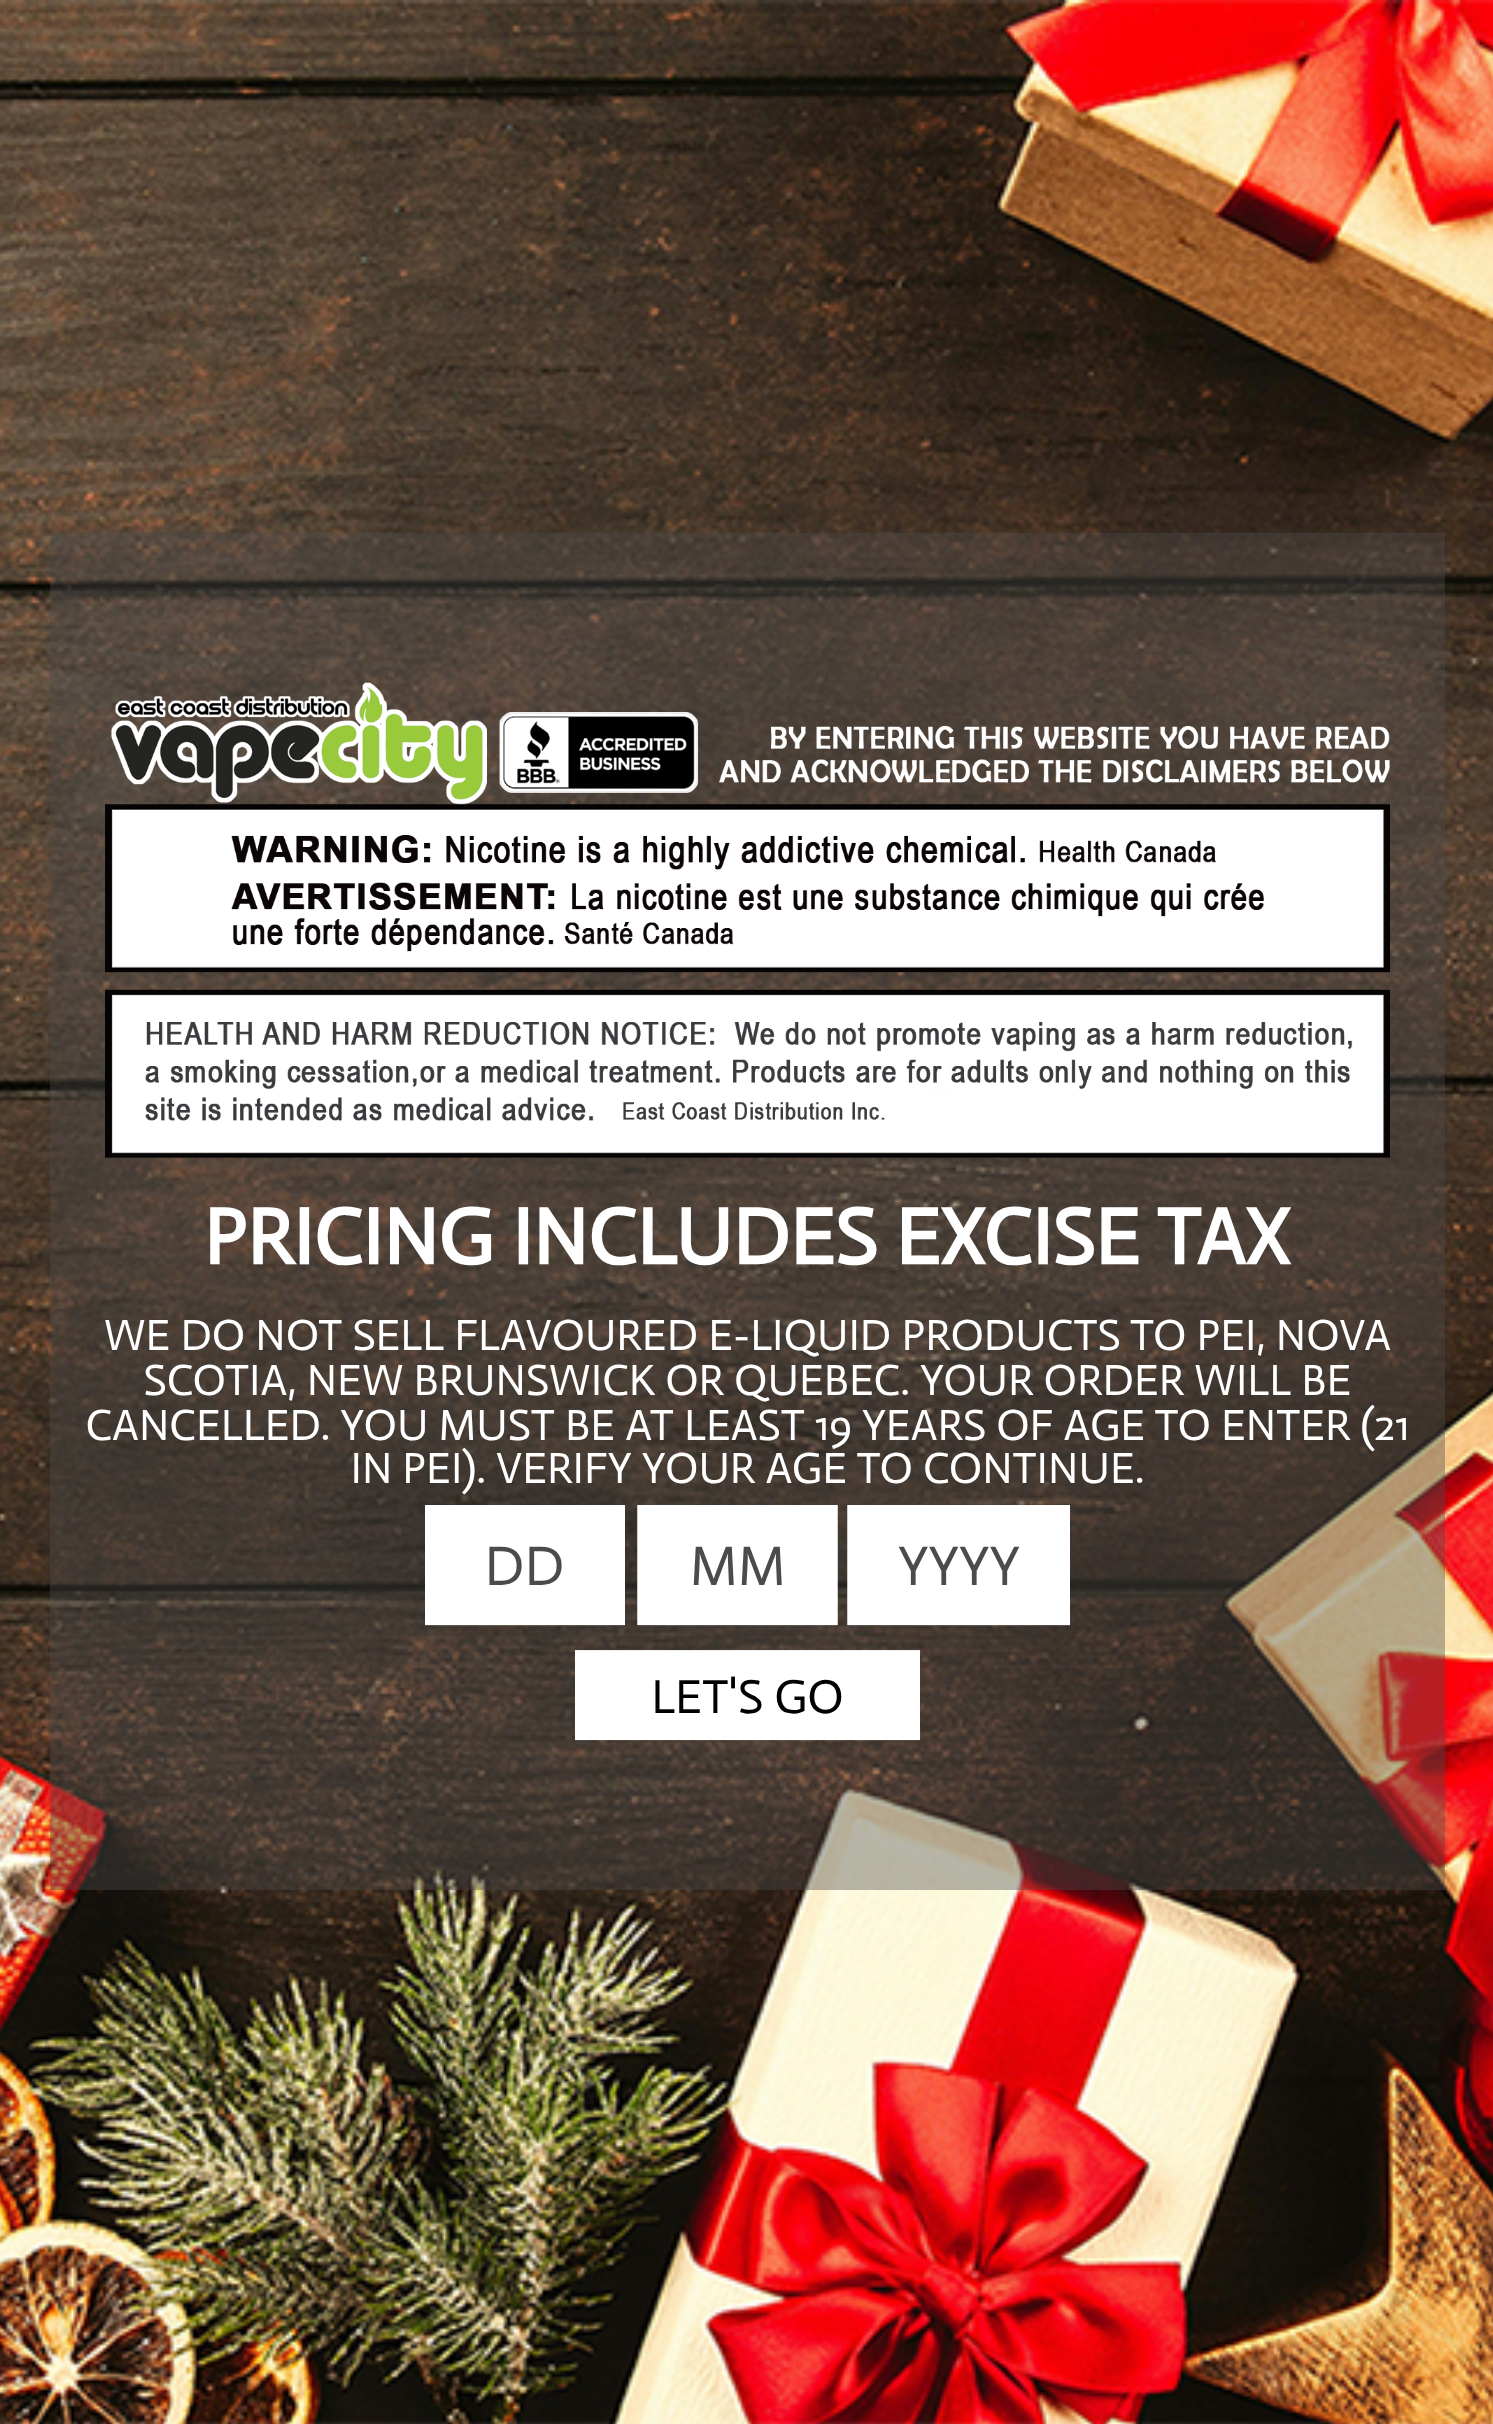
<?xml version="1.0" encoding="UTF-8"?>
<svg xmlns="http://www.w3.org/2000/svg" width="1493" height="2424">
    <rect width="100%" height="100%" fill="#FFFFFF"/>
    <image x="0" y="0" width="1493" height="2424" href="img_01.png"/>
    <image x="50" y="532" width="1395" height="1358" href="img_02.png"/>
</svg>
